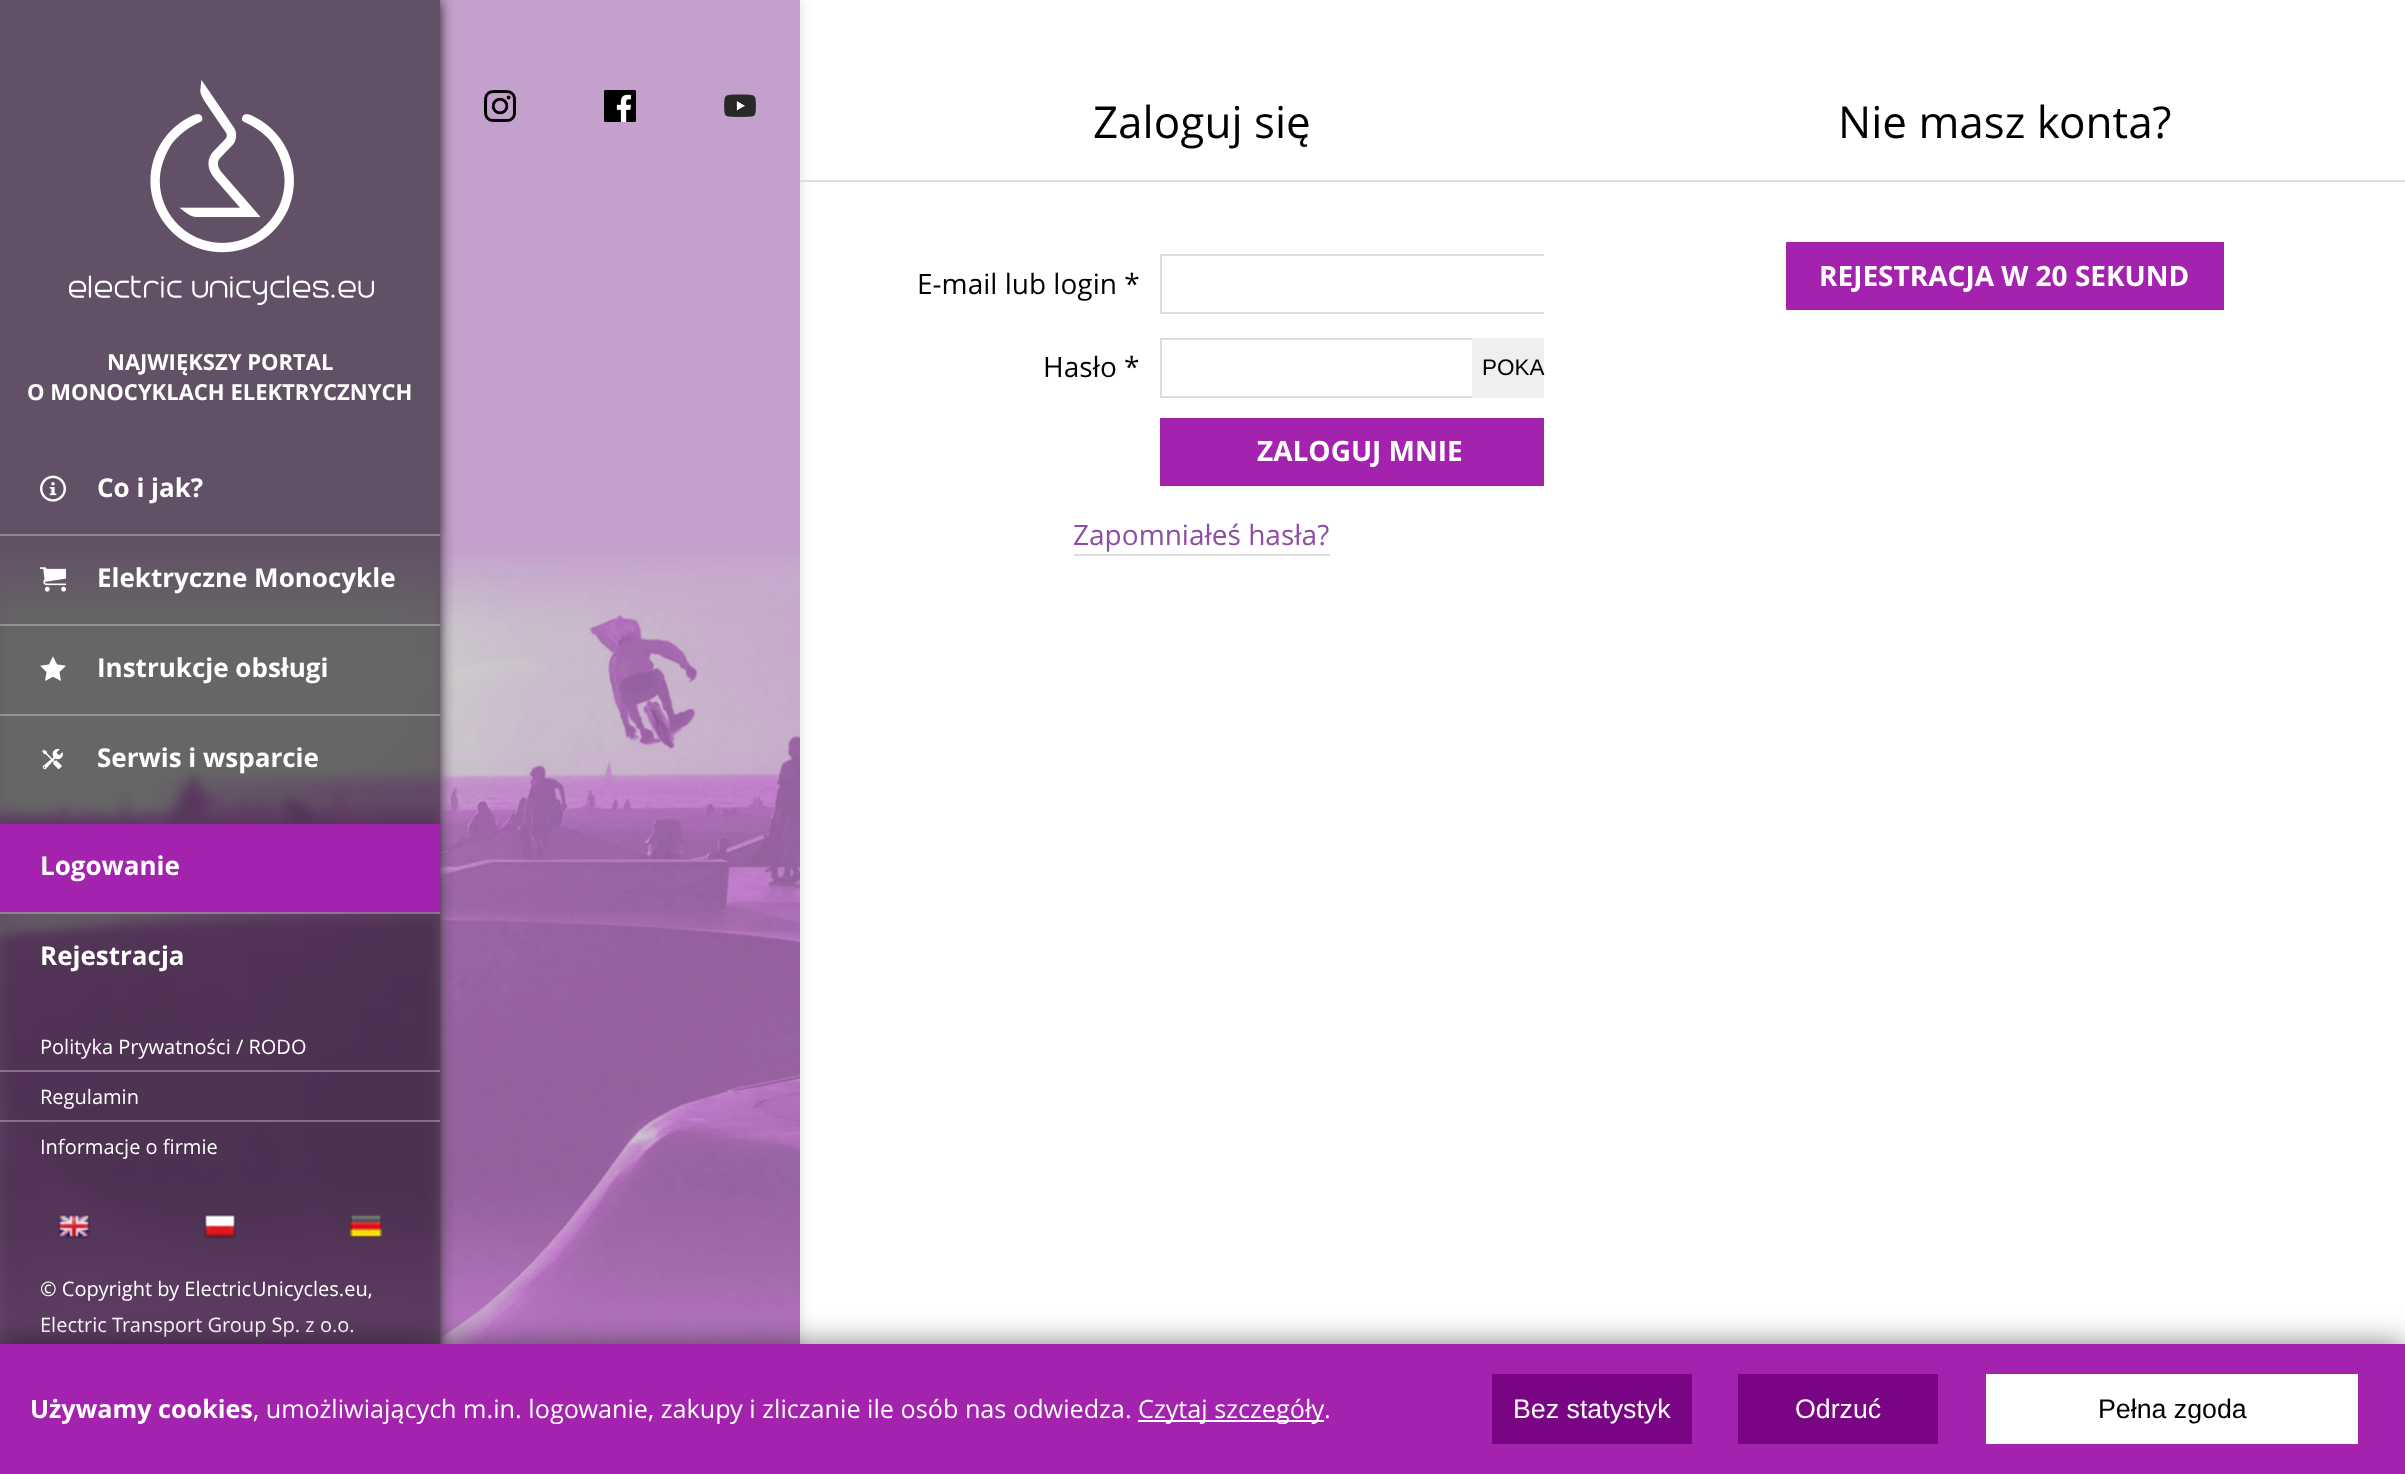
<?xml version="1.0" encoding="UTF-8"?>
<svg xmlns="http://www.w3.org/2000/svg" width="2405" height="1474">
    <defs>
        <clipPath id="clip1"><path d="M 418 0 H 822 V 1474 H 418 Z M 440 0 H 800 V 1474 H 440 Z" clip-rule="evenodd"/></clipPath>
        <filter id="blur1" x="-50%" y="-200%" width="200%" height="500%"><feGaussianBlur stdDeviation="7"/></filter>
        <filter id="blur2" x="-50%" y="-200%" width="200%" height="500%"><feGaussianBlur stdDeviation="6"/></filter>
        <clipPath id="clip2"><rect x="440" y="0" width="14" height="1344"/></clipPath>
        <clipPath id="clip3"><rect x="860" y="242" width="684" height="82"/></clipPath>
        <clipPath id="clip4"><rect x="1160" y="334" width="384" height="64"/></clipPath>
        <filter id="blur3" x="-50%" y="-200%" width="200%" height="500%"><feGaussianBlur stdDeviation="15"/></filter>
    </defs>
    <rect width="100%" height="100%" fill="#FFFFFF"/>
    <rect x="0" y="0" width="800" height="1344" fill="#F6CAFF"/>
    <image x="0" y="555" width="800" height="789" href="img_01.png"/>
    <rect x="800" y="180" width="1605" height="2" fill="#DDDDDD"/>
    <g clip-path="url(#clip1)">
        <rect x="440" y="0" width="360" height="1474" fill="#DDDDDD" filter="url(#blur1)"/>
    </g>
    <rect x="440" y="0" width="360" height="1344" fill="#000000" fill-opacity="0.2"/>
    <rect x="0" y="0" width="440" height="1474" fill="#F6CAFF" filter="url(#blur2)"/>
    <image x="0" y="529" width="449" height="815" href="img_02.png"/>
    <image x="484" y="90" width="32" height="32" href="img_03.png"/>
    <image x="604" y="90" width="32" height="32" href="img_04.png"/>
    <image x="724" y="94" width="32" height="23" href="img_05.png"/>
    <g clip-path="url(#clip2)">
        <rect x="0" y="0" width="440" height="1474" fill="#000000" filter="url(#blur1)"/>
    </g>
    <rect x="0" y="0" width="440" height="1344" fill="#000000" fill-opacity="0.6"/>
    <image x="69" y="80" width="305" height="225" href="img_06.png"/>
    <text x="107" y="370" font-family="Open Sans" font-size="22" font-weight="700" fill="#FFFFFF">NAJWIĘKSZY PORTAL</text>
    <text x="27" y="400" font-family="Open Sans" font-size="22" font-weight="700" fill="#FFFFFF">O MONOCYKLACH ELEKTRYCZNYCH</text>
    <image x="40" y="475" width="26" height="27" href="img_07.png"/>
    <text x="97" y="497" font-family="Open Sans" font-size="26" font-weight="700" fill="#FFFFFF">Co i jak?</text>
    <rect x="0" y="534" width="440" height="2" fill="#918594"/>
    <image x="40" y="567" width="26" height="25" href="img_08.png"/>
    <text x="97" y="587" font-family="Open Sans" font-size="26" font-weight="700" fill="#FFFFFF">Elektryczne Monocykle</text>
    <rect x="0" y="624" width="440" height="2" fill="#FFFFFF" fill-opacity="0.3"/>
    <image x="40" y="656" width="26" height="25" href="img_09.png"/>
    <text x="97" y="677" font-family="Open Sans" font-size="26" font-weight="700" fill="#FFFFFF">Instrukcje obsługi</text>
    <rect x="0" y="714" width="440" height="2" fill="#FFFFFF" fill-opacity="0.3"/>
    <image x="42" y="748" width="21" height="22" href="img_10.png"/>
    <text x="97" y="767" font-family="Open Sans" font-size="26" font-weight="700" fill="#FFFFFF">Serwis i wsparcie</text>
    <rect x="0" y="824" width="440" height="88" fill="#A323AE"/>
    <text x="40" y="875" font-family="Open Sans" font-size="26" font-weight="700" fill="#FFFFFF">Logowanie</text>
    <rect x="0" y="912" width="440" height="2" fill="#FFFFFF" fill-opacity="0.3"/>
    <text x="40" y="965" font-family="Open Sans" font-size="26" font-weight="700" fill="#FFFFFF">Rejestracja</text>
    <text x="40" y="1054" font-family="Open Sans" font-size="20" fill="#FFFFFF">Polityka Prywatności / RODO</text>
    <rect x="0" y="1070" width="440" height="2" fill="#FFFFFF" fill-opacity="0.3"/>
    <text x="40" y="1104" font-family="Open Sans" font-size="20" fill="#FFFFFF">Regulamin</text>
    <rect x="0" y="1120" width="440" height="2" fill="#FFFFFF" fill-opacity="0.3"/>
    <text x="40" y="1154" font-family="Open Sans" font-size="20" fill="#FFFFFF">Informacje o firmie</text>
    <image x="58" y="1214" width="32" height="25" href="img_11.png"/>
    <image x="204" y="1214" width="32" height="25" href="img_12.png"/>
    <image x="350" y="1213" width="32" height="26" href="img_13.png"/>
    <text x="40" y="1296" font-family="Open Sans" font-size="20" fill="#FFFFFF">© Copyright by Electric</text>
    <text x="252" y="1296" font-family="Open Sans" font-size="20" fill="#FFFFFF">Unicycles.eu,</text>
    <text x="40" y="1332" font-family="Open Sans" font-size="20" fill="#FFFFFF">Electric Transport Group Sp. z o.o.</text>
    <text x="1093" y="138" font-family="Open Sans" font-size="44" fill="#000000">Zaloguj się</text>
    <text x="917" y="294" font-family="Open Sans" font-size="28" fill="#000000">E-mail lub login *</text>
    <g clip-path="url(#clip3)">
        <rect x="1161" y="255" width="398" height="58" fill="none" stroke="#DDDDDD" stroke-width="2"/>
    </g>
    <text x="1043" y="377" font-family="Open Sans" font-size="28" fill="#000000">Hasło *</text>
    <g clip-path="url(#clip4)">
        <rect x="1161" y="339" width="406" height="58" fill="none" stroke="#DDDDDD" stroke-width="2"/>
    </g>
    <rect x="1472" y="338" width="72" height="60" fill="#EFEFEF"/>
    <text x="1482" y="375" font-family="Liberation Sans" font-size="22.5" fill="#000000">POKA</text>
    <rect x="1160" y="418" width="384" height="68" fill="#A323AE"/>
    <text x="1257" y="461" font-family="Open Sans" font-size="28" font-weight="700" fill="#FFFFFF">ZALOGUJ MNIE</text>
    <text x="1073" y="545" font-family="Open Sans" font-size="28" fill="#8E4DA6">Zapomniałeś hasła?</text>
    <rect x="1074" y="554" width="256" height="2" fill="#DDDDDD"/>
    <text x="1838" y="138" font-family="Open Sans" font-size="44" fill="#000000">Nie masz konta?</text>
    <rect x="1786" y="242" width="438" height="68" fill="#A323AE"/>
    <text x="1819" y="286" font-family="Open Sans" font-size="28" font-weight="700" fill="#FFFFFF">REJESTRACJA W 20 SEKUND</text>
    <rect x="0" y="1344" width="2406" height="130" fill="#000000" fill-opacity="0.5" filter="url(#blur3)"/>
    <rect x="0" y="1344" width="2405" height="130" fill="#A323AE"/>
    <text x="30" y="1418" font-family="Open Sans" font-size="25.2" font-weight="700" fill="#FFFFFF">Używamy cookies</text>
    <text x="253" y="1418" font-family="Open Sans" font-size="25.2" fill="#FFFFFF">, umożliwiających m.in. logowanie, zakupy i zliczanie ile osób nas odwiedza.</text>
    <rect x="1138" y="1420" width="186" height="2" fill="#FFFFFF"/>
    <text x="1138" y="1418" font-family="Open Sans" font-size="25.2" fill="#FFFFFF">Czytaj szczegóły</text>
    <text x="1324" y="1418" font-family="Open Sans" font-size="25.2" fill="#FFFFFF">.</text>
    <rect x="1492" y="1374" width="200" height="70" fill="#7A0584"/>
    <text x="1513" y="1418" font-family="Liberation Sans" font-size="26.75" fill="#FFFFFF">Bez statystyk</text>
    <rect x="1738" y="1374" width="200" height="70" fill="#7A0584"/>
    <text x="1795" y="1418" font-family="Liberation Sans" font-size="26.75" fill="#FFFFFF">Odrzuć</text>
    <rect x="1986" y="1374" width="372" height="70" fill="#FFFFFF"/>
    <text x="2098" y="1418" font-family="Liberation Sans" font-size="26.75" fill="#000000">Pełna zgoda</text>
</svg>
